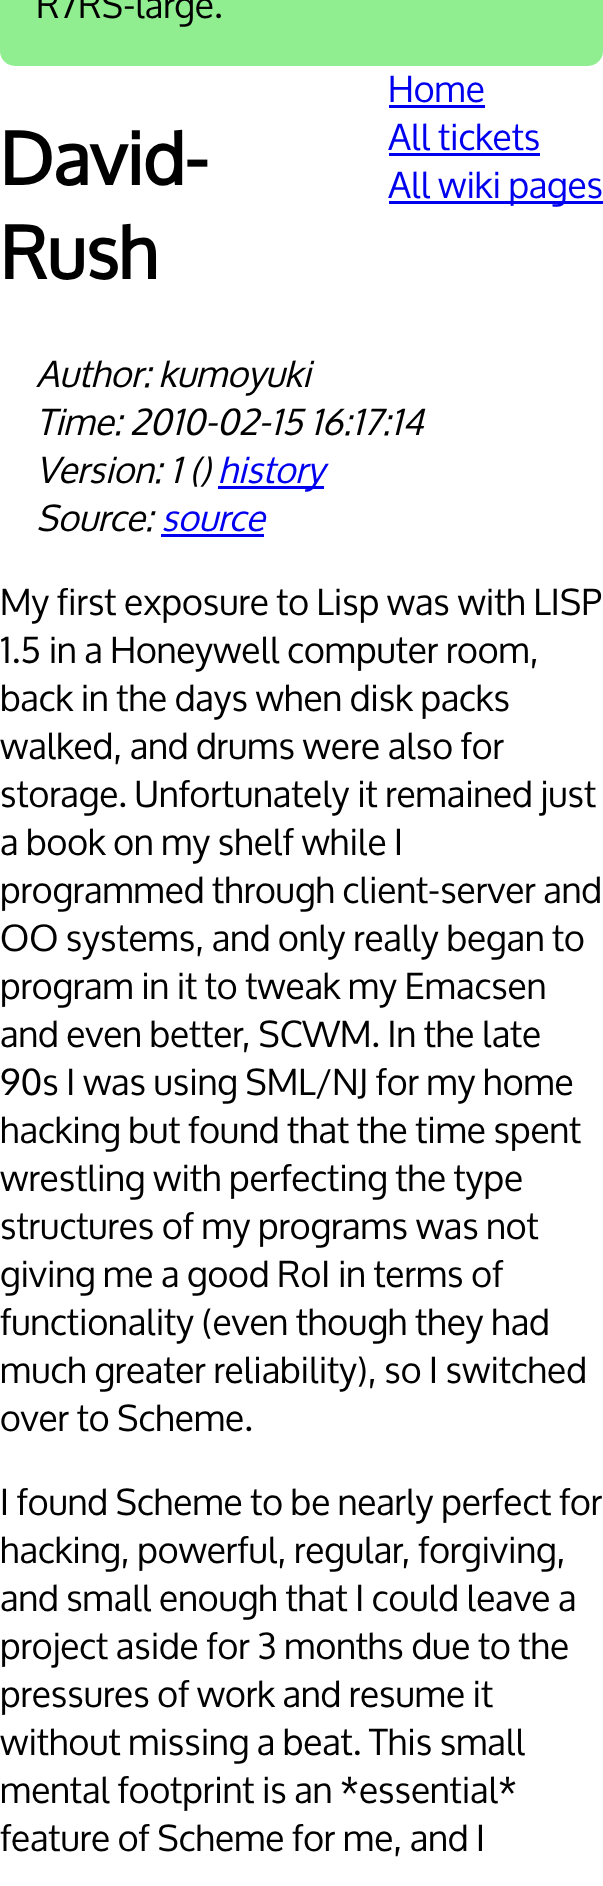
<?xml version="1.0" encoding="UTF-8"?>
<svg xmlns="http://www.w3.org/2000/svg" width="603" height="1886">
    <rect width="100%" height="100%" fill="#FFFFFF"/>
    <rect x="0" y="-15" width="603" height="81" rx="15" fill="#90EE90"/>
    <text x="36" y="18" font-family="Oxygen" font-size="36" fill="#000000">R7RS-large.</text>
    <text font-family="Oxygen" font-size="72" font-weight="700" fill="#000000">
        <tspan x="0" y="185">David-</tspan>
        <tspan x="0" y="279">Rush</tspan>
    </text>
    <text x="388" y="102" font-family="Oxygen" font-size="36" fill="#0000EE">Home</text>
    <rect x="389" y="105" width="96" height="3" fill="#0000EE"/>
    <text x="388" y="150" font-family="Oxygen" font-size="36" fill="#0000EE">All tickets</text>
    <rect x="389" y="153" width="151" height="3" fill="#0000EE"/>
    <rect x="389" y="201" width="214" height="3" fill="#0000EE"/>
    <text x="388" y="198" font-family="Oxygen" font-size="36" fill="#0000EE">All wiki pages</text>
    <text font-family="Oxygen" font-size="36" font-style="italic" fill="#000000">
        <tspan x="36" y="387">Author: kumoyuki</tspan>
        <tspan x="36" y="435">Time: 2010-02-15 16:17:14</tspan>
        <tspan x="36" y="483">Version: 1 ()</tspan>
    </text>
    <rect x="218" y="486" width="106" height="3" fill="#0000EE"/>
    <text x="218" y="483" font-family="Oxygen" font-size="36" font-style="italic" fill="#0000EE">history</text>
    <text x="36" y="531" font-family="Oxygen" font-size="36" font-style="italic" fill="#000000">Source:</text>
    <text x="161" y="531" font-family="Oxygen" font-size="36" font-style="italic" fill="#0000EE">source</text>
    <rect x="161" y="534" width="103" height="3" fill="#0000EE"/>
    <text font-family="Oxygen" font-size="36" fill="#000000">
        <tspan x="0" y="615">My first exposure to Lisp was with LISP</tspan>
        <tspan x="0" y="663">1.5 in a Honeywell computer room,</tspan>
        <tspan x="0" y="711">back in the days when disk packs</tspan>
        <tspan x="0" y="759">walked, and drums were also for</tspan>
        <tspan x="0" y="807">storage. Unfortunately it remained just</tspan>
        <tspan x="0" y="855">a book on my shelf while I</tspan>
        <tspan x="0" y="903">programmed through client-server and</tspan>
        <tspan x="0" y="951">OO systems, and only really began to</tspan>
        <tspan x="0" y="999">program in it to tweak my Emacsen</tspan>
        <tspan x="0" y="1047">and even better, SCWM. In the late</tspan>
        <tspan x="0" y="1095">90s I was using SML/NJ for my home</tspan>
        <tspan x="0" y="1143">hacking but found that the time spent</tspan>
        <tspan x="0" y="1191">wrestling with perfecting the type</tspan>
        <tspan x="0" y="1239">structures of my programs was not</tspan>
        <tspan x="0" y="1287">giving me a good RoI in terms of</tspan>
        <tspan x="0" y="1335">functionality (even though they had</tspan>
        <tspan x="0" y="1383">much greater reliability), so I switched</tspan>
        <tspan x="0" y="1431">over to Scheme.</tspan>
    </text>
    <text font-family="Oxygen" font-size="36" fill="#000000">
        <tspan x="0" y="1515">I found Scheme to be nearly perfect for</tspan>
        <tspan x="0" y="1563">hacking, powerful, regular, forgiving,</tspan>
        <tspan x="0" y="1611">and small enough that I could leave a</tspan>
        <tspan x="0" y="1659">project aside for 3 months due to the</tspan>
        <tspan x="0" y="1707">pressures of work and resume it</tspan>
        <tspan x="0" y="1755">without missing a beat. This small</tspan>
        <tspan x="0" y="1803">mental footprint is an *essential*</tspan>
        <tspan x="0" y="1851">feature of Scheme for me, and I</tspan>
    </text>
</svg>
